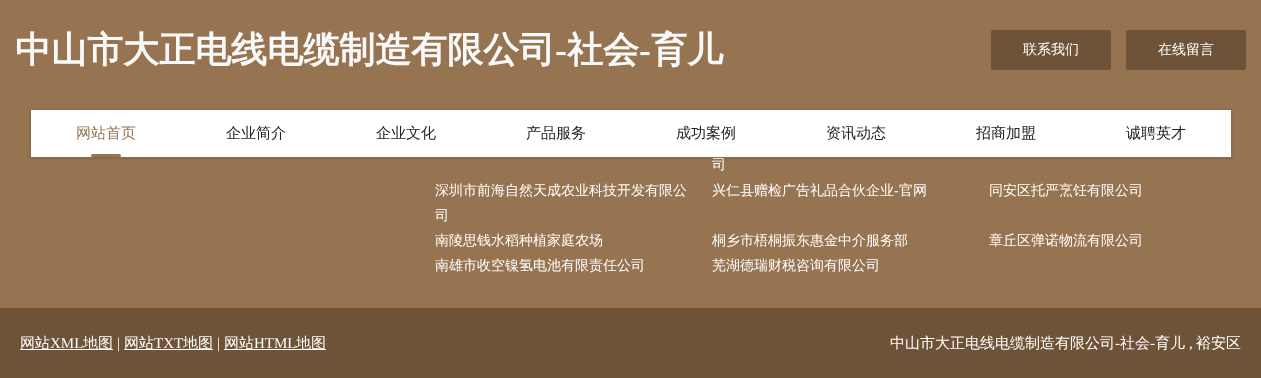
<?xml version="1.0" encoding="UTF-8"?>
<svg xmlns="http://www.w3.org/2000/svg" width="1261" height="378">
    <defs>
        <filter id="blur1" x="-50%" y="-200%" width="200%" height="500%"><feGaussianBlur stdDeviation="1.5"/></filter>
    </defs>
    <rect width="100%" height="100%" fill="#977451"/>
    <text x="15" y="62" font-family="WenQuanYi Zen Hei" font-size="36" font-weight="700" fill="#F9F9F9">中山市大正电线电缆制造有限公司</text>
    <text x="555" y="62" font-family="Liberation Serif" font-size="36" font-weight="700" fill="#F9F9F9">-</text>
    <text x="567" y="62" font-family="WenQuanYi Zen Hei" font-size="36" font-weight="700" fill="#F9F9F9">社会</text>
    <text x="639" y="62" font-family="Liberation Serif" font-size="36" font-weight="700" fill="#F9F9F9">-</text>
    <text x="651" y="62" font-family="WenQuanYi Zen Hei" font-size="36" font-weight="700" fill="#F9F9F9">育儿</text>
    <rect x="991" y="30" width="120" height="40" rx="2" fill="#6F5338"/>
    <text x="1023" y="54" font-family="WenQuanYi Zen Hei" font-size="14" font-weight="500" fill="#FFFFFF">联系我们</text>
    <rect x="1126" y="30" width="120" height="40" rx="2" fill="#6F5338"/>
    <text x="1158" y="54" font-family="WenQuanYi Zen Hei" font-size="14" font-weight="500" fill="#FFFFFF">在线留言</text>
    <rect x="29" y="109" width="1204" height="51" fill="#000000" fill-opacity="0.08" filter="url(#blur1)"/>
    <rect x="31" y="110" width="1200" height="47" fill="#FFFFFF"/>
    <text x="76" y="138" font-family="WenQuanYi Zen Hei" font-size="15" font-weight="500" fill="#977451">网站首页</text>
    <rect x="91" y="154" width="30" height="3" rx="1.5" fill="#977451"/>
    <text x="226" y="138" font-family="WenQuanYi Zen Hei" font-size="15" font-weight="500" fill="#232323">企业简介</text>
    <text x="376" y="138" font-family="WenQuanYi Zen Hei" font-size="15" font-weight="500" fill="#232323">企业文化</text>
    <text x="526" y="138" font-family="WenQuanYi Zen Hei" font-size="15" font-weight="500" fill="#232323">产品服务</text>
    <text x="676" y="138" font-family="WenQuanYi Zen Hei" font-size="15" font-weight="500" fill="#232323">成功案例</text>
    <text x="826" y="138" font-family="WenQuanYi Zen Hei" font-size="15" font-weight="500" fill="#232323">资讯动态</text>
    <text x="976" y="138" font-family="WenQuanYi Zen Hei" font-size="15" font-weight="500" fill="#232323">招商加盟</text>
    <text x="1126" y="138" font-family="WenQuanYi Zen Hei" font-size="15" font-weight="500" fill="#232323">诚聘英才</text>
    <text x="712" y="169" font-family="WenQuanYi Zen Hei" font-size="14" font-weight="500" fill="#FFFFFF">司</text>
    <text font-family="WenQuanYi Zen Hei" font-size="14" font-weight="500" fill="#FFFFFF">
        <tspan x="435" y="195">深圳市前海自然天成农业科技开发有限公</tspan>
        <tspan x="435" y="220">司</tspan>
    </text>
    <text x="712" y="195" font-family="WenQuanYi Zen Hei" font-size="14" font-weight="500" fill="#FFFFFF">兴仁县赠检广告礼品合伙企业</text>
    <text x="894" y="195" font-family="Liberation Serif" font-size="14" fill="#FFFFFF">-</text>
    <text x="899" y="195" font-family="WenQuanYi Zen Hei" font-size="14" font-weight="500" fill="#FFFFFF">官网</text>
    <text x="989" y="195" font-family="WenQuanYi Zen Hei" font-size="14" font-weight="500" fill="#FFFFFF">同安区托严烹饪有限公司</text>
    <text x="435" y="245" font-family="WenQuanYi Zen Hei" font-size="14" font-weight="500" fill="#FFFFFF">南陵思钱水稻种植家庭农场</text>
    <text x="712" y="245" font-family="WenQuanYi Zen Hei" font-size="14" font-weight="500" fill="#FFFFFF">桐乡市梧桐振东惠金中介服务部</text>
    <text x="989" y="245" font-family="WenQuanYi Zen Hei" font-size="14" font-weight="500" fill="#FFFFFF">章丘区弹诺物流有限公司</text>
    <text x="435" y="270" font-family="WenQuanYi Zen Hei" font-size="14" font-weight="500" fill="#FFFFFF">南雄市收空镍氢电池有限责任公司</text>
    <text x="712" y="270" font-family="WenQuanYi Zen Hei" font-size="14" font-weight="500" fill="#FFFFFF">芜湖德瑞财税咨询有限公司</text>
    <rect x="0" y="308" width="1261" height="70" fill="#6F5338"/>
    <rect x="20" y="349" width="93" height="1" fill="#FFFFFF"/>
    <text x="20" y="348" font-family="WenQuanYi Zen Hei" font-size="15" font-weight="500" fill="#FFFFFF">网站</text>
    <text x="50" y="348" font-family="Liberation Serif" font-size="15" fill="#FFFFFF">XML</text>
    <text x="83" y="348" font-family="WenQuanYi Zen Hei" font-size="15" font-weight="500" fill="#FFFFFF">地图</text>
    <text x="117" y="348" font-family="Liberation Serif" font-size="15" fill="#FFFFFF">|</text>
    <rect x="124" y="349" width="89" height="1" fill="#FFFFFF"/>
    <text x="124" y="348" font-family="WenQuanYi Zen Hei" font-size="15" font-weight="500" fill="#FFFFFF">网站</text>
    <text x="154" y="348" font-family="Liberation Serif" font-size="15" fill="#FFFFFF">TXT</text>
    <text x="183" y="348" font-family="WenQuanYi Zen Hei" font-size="15" font-weight="500" fill="#FFFFFF">地图</text>
    <text x="217" y="348" font-family="Liberation Serif" font-size="15" fill="#FFFFFF">|</text>
    <rect x="224" y="349" width="102" height="1" fill="#FFFFFF"/>
    <text x="224" y="348" font-family="WenQuanYi Zen Hei" font-size="15" font-weight="500" fill="#FFFFFF">网站</text>
    <text x="254" y="348" font-family="Liberation Serif" font-size="15" fill="#FFFFFF">HTML</text>
    <text x="296" y="348" font-family="WenQuanYi Zen Hei" font-size="15" font-weight="500" fill="#FFFFFF">地图</text>
    <text x="890" y="348" font-family="WenQuanYi Zen Hei" font-size="15" font-weight="500" fill="#FFFFFF">中山市大正电线电缆制造有限公司</text>
    <text x="1115" y="348" font-family="Liberation Serif" font-size="15" fill="#FFFFFF">-</text>
    <text x="1120" y="348" font-family="WenQuanYi Zen Hei" font-size="15" font-weight="500" fill="#FFFFFF">社会</text>
    <text x="1150" y="348" font-family="Liberation Serif" font-size="15" fill="#FFFFFF">-</text>
    <text x="1155" y="348" font-family="WenQuanYi Zen Hei" font-size="15" font-weight="500" fill="#FFFFFF">育儿</text>
    <text x="1196" y="348" font-family="WenQuanYi Zen Hei" font-size="15" font-weight="500" fill="#FFFFFF">裕安区</text>
    <text x="1189" y="348" font-family="Liberation Serif" font-size="15" fill="#FFFFFF">,</text>
</svg>
